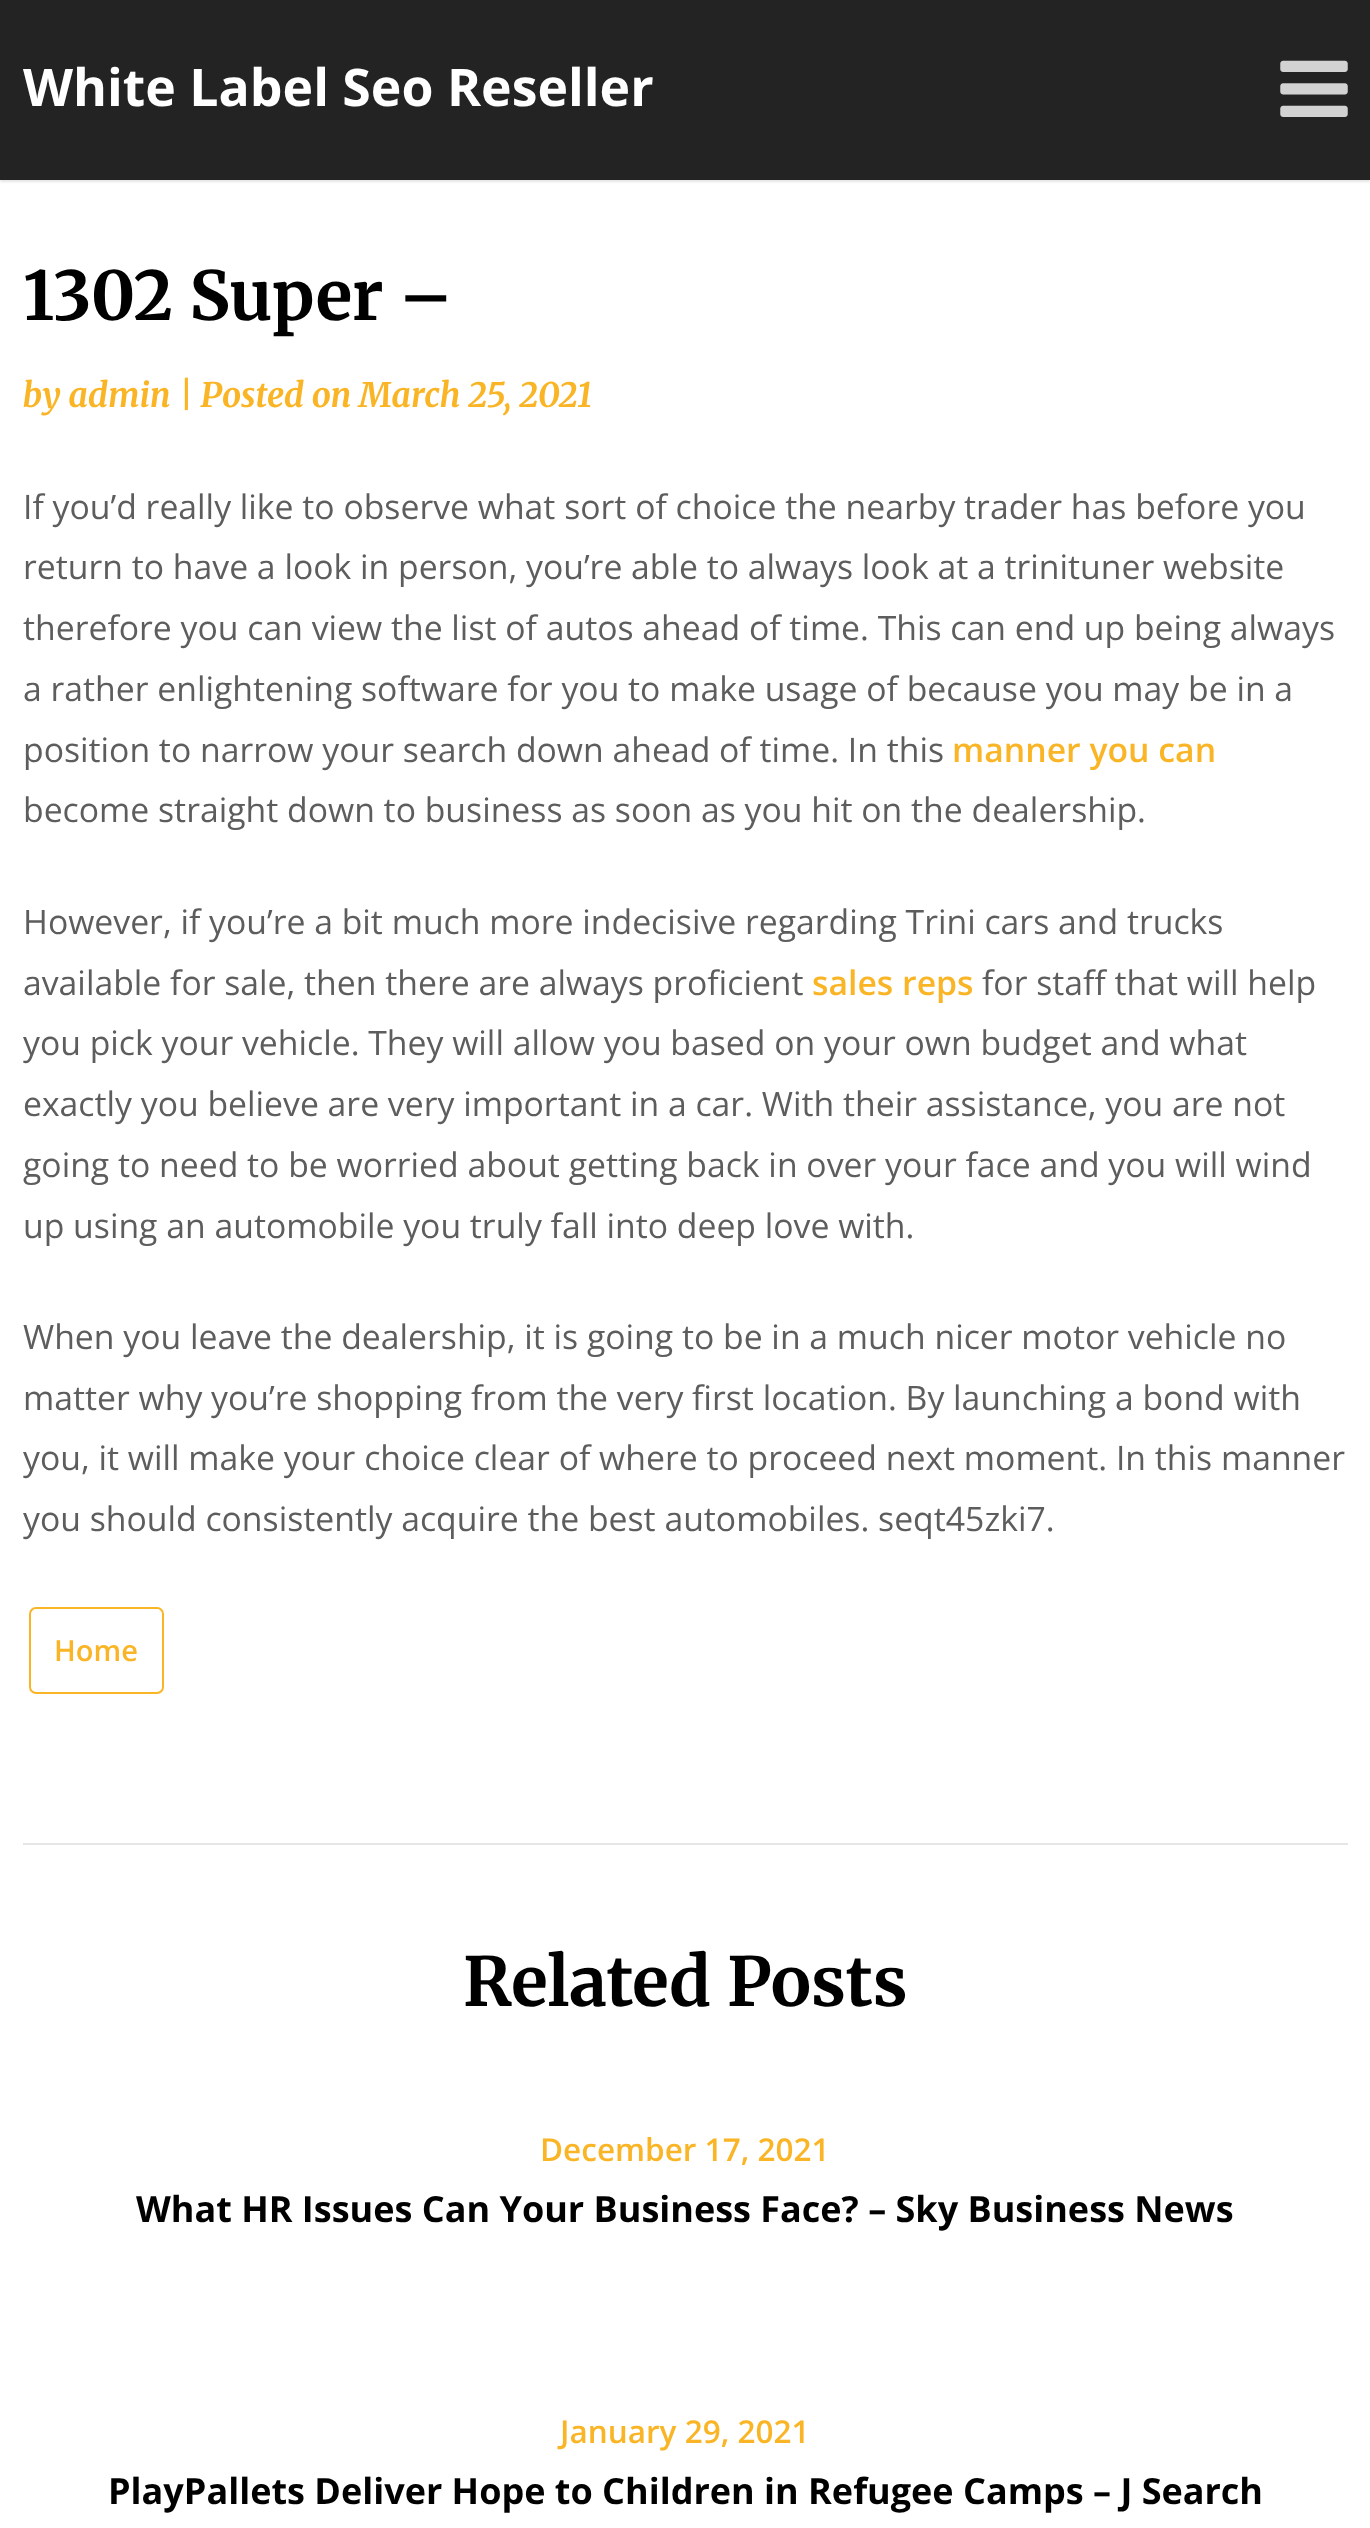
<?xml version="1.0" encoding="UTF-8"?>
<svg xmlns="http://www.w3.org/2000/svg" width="1370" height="2528">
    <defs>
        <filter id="blur1" x="-50%" y="-200%" width="200%" height="500%"><feGaussianBlur stdDeviation="1"/></filter>
    </defs>
    <rect width="100%" height="100%" fill="#FFFFFF"/>
    <rect x="0" y="2" width="1370" height="180" fill="#000000" fill-opacity="0.1" filter="url(#blur1)"/>
    <rect x="0" y="0" width="1370" height="180" fill="#232323"/>
    <text x="23" y="106" font-family="Open Sans" font-size="51.75" font-weight="700" fill="#FFFFFF">White Label Seo Reseller</text>
    <image x="1280" y="60" width="68" height="57" href="img_01.png"/>
    <text x="23" y="320" font-family="Merriweather" font-size="67.5" font-weight="700" fill="#000000">1302 Super –</text>
    <text x="23" y="407" font-family="Merriweather" font-size="33.75" font-weight="300" font-style="italic" fill="#FAB526">by admin</text>
    <text x="179" y="407" font-family="Merriweather" font-size="33.75" font-weight="300" font-style="italic" fill="#FAB526">| Posted on March 25, 2021</text>
    <text font-family="Open Sans" font-size="33.75" fill="#5D5D5D">
        <tspan x="23" y="519">If you’d really like to observe what sort of choice the nearby trader has before you</tspan>
        <tspan x="23" y="579">return to have a look in person, you’re able to always look at a trinituner website</tspan>
        <tspan x="23" y="640">therefore you can view the list of autos ahead of time. This can end up being always</tspan>
        <tspan x="23" y="701">a rather enlightening software for you to make usage of because you may be in a</tspan>
        <tspan x="23" y="762">position to narrow your search down ahead of time. In this</tspan>
    </text>
    <text x="952" y="762" font-family="Open Sans" font-size="33.75" font-weight="600" fill="#FAB526">manner you can</text>
    <text x="23" y="822" font-family="Open Sans" font-size="33.75" fill="#5D5D5D">become straight down to business as soon as you hit on the dealership.</text>
    <text font-family="Open Sans" font-size="33.75" fill="#5D5D5D">
        <tspan x="23" y="934">However, if you’re a bit much more indecisive regarding Trini cars and trucks</tspan>
        <tspan x="23" y="995">available for sale, then there are always proficient</tspan>
    </text>
    <text x="812" y="995" font-family="Open Sans" font-size="33.75" font-weight="600" fill="#FAB526">sales reps</text>
    <text x="982" y="995" font-family="Open Sans" font-size="33.75" fill="#5D5D5D">for staff that will help</text>
    <text font-family="Open Sans" font-size="33.75" fill="#5D5D5D">
        <tspan x="23" y="1055">you pick your vehicle. They will allow you based on your own budget and what</tspan>
        <tspan x="23" y="1116">exactly you believe are very important in a car. With their assistance, you are not</tspan>
        <tspan x="23" y="1177">going to need to be worried about getting back in over your face and you will wind</tspan>
        <tspan x="23" y="1238">up using an automobile you truly fall into deep love with.</tspan>
    </text>
    <text font-family="Open Sans" font-size="33.75" fill="#5D5D5D">
        <tspan x="23" y="1349">When you leave the dealership, it is going to be in a much nicer motor vehicle no</tspan>
        <tspan x="23" y="1410">matter why you’re shopping from the very first location. By launching a bond with</tspan>
        <tspan x="23" y="1470">you, it will make your choice clear of where to proceed next moment. In this manner</tspan>
        <tspan x="23" y="1531">you should consistently acquire the best automobiles. seqt45zki7.</tspan>
    </text>
    <rect x="30" y="1608" width="133" height="85" rx="6" fill="none" stroke="#FAB526" stroke-width="2"/>
    <text x="54" y="1661" font-family="Open Sans" font-size="29" font-weight="600" fill="#FAB526">Home</text>
    <rect x="23" y="1843" width="1325" height="2" fill="#E6E6E6"/>
    <text x="463" y="2006" font-family="Merriweather" font-size="67.5" font-weight="700" fill="#000000">Related Posts</text>
    <text x="540" y="2161" font-family="Open Sans" font-size="31.5" font-weight="600" fill="#FAB526">December 17, 2021</text>
    <text x="136" y="2222" font-family="Open Sans" font-size="36" font-weight="700" fill="#000000">What HR Issues Can Your Business Face? – Sky Business News</text>
    <text x="560" y="2443" font-family="Open Sans" font-size="31.5" font-weight="600" fill="#FAB526">January 29, 2021</text>
    <text x="108" y="2504" font-family="Open Sans" font-size="36" font-weight="700" fill="#000000">PlayPallets Deliver Hope to Children in Refugee Camps – J Search</text>
</svg>
